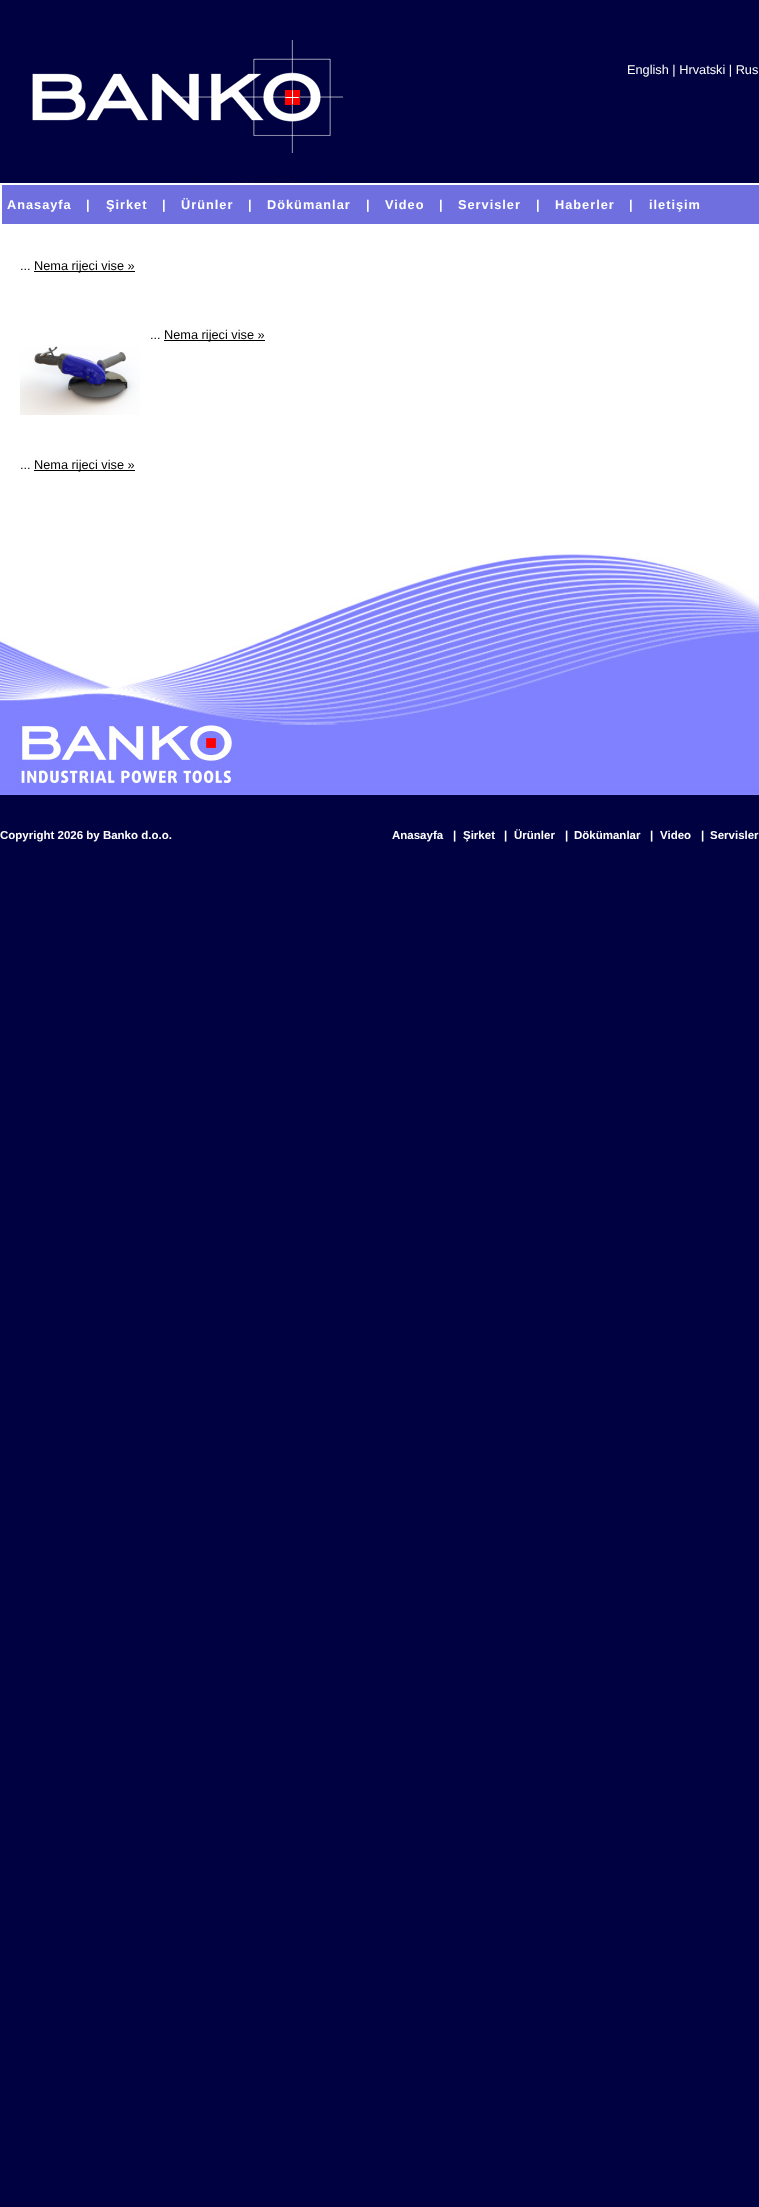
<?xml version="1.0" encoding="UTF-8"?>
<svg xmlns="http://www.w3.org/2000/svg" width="759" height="2207">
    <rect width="100%" height="100%" fill="#000140"/>
    <image x="0" y="177" width="759" height="6" href="img_01.png"/>
    <image x="32" y="40" width="311" height="113" href="img_02.png"/>
    <text x="627" y="74" font-family="Liberation Sans" font-size="12.75" fill="#FFFFFF">English | Hrvatski | Rus</text>
    <rect x="1" y="184" width="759" height="41" fill="#6F6FDF" stroke="#FFFFFF" stroke-width="2"/>
    <text x="7" y="209" font-family="Liberation Sans" font-size="12.75" font-weight="700" letter-spacing="1" fill="#FFFFFF">Anasayfa</text>
    <text x="86" y="209" font-family="Liberation Sans" font-size="12.75" font-weight="700" letter-spacing="1" fill="#FFFFFF">|</text>
    <text x="106" y="209" font-family="Liberation Sans" font-size="12.75" font-weight="700" letter-spacing="1" fill="#FFFFFF">Şirket</text>
    <text x="162" y="209" font-family="Liberation Sans" font-size="12.75" font-weight="700" letter-spacing="1" fill="#FFFFFF">|</text>
    <text x="181" y="209" font-family="Liberation Sans" font-size="12.75" font-weight="700" letter-spacing="1" fill="#FFFFFF">Ürünler</text>
    <text x="248" y="209" font-family="Liberation Sans" font-size="12.75" font-weight="700" letter-spacing="1" fill="#FFFFFF">|</text>
    <text x="267" y="209" font-family="Liberation Sans" font-size="12.75" font-weight="700" letter-spacing="1" fill="#FFFFFF">Dökümanlar</text>
    <text x="366" y="209" font-family="Liberation Sans" font-size="12.75" font-weight="700" letter-spacing="1" fill="#FFFFFF">|</text>
    <text x="385" y="209" font-family="Liberation Sans" font-size="12.75" font-weight="700" letter-spacing="1" fill="#FFFFFF">Video</text>
    <text x="439" y="209" font-family="Liberation Sans" font-size="12.75" font-weight="700" letter-spacing="1" fill="#FFFFFF">|</text>
    <text x="458" y="209" font-family="Liberation Sans" font-size="12.75" font-weight="700" letter-spacing="1" fill="#FFFFFF">Servisler</text>
    <text x="536" y="209" font-family="Liberation Sans" font-size="12.75" font-weight="700" letter-spacing="1" fill="#FFFFFF">|</text>
    <text x="555" y="209" font-family="Liberation Sans" font-size="12.75" font-weight="700" letter-spacing="1" fill="#FFFFFF">Haberler</text>
    <text x="629" y="209" font-family="Liberation Sans" font-size="12.75" font-weight="700" letter-spacing="1" fill="#FFFFFF">|</text>
    <text x="649" y="209" font-family="Liberation Sans" font-size="12.75" font-weight="700" letter-spacing="1" fill="#FFFFFF">iletişim</text>
    <rect x="0" y="226" width="759" height="323" fill="#FFFFFF"/>
    <text x="20" y="270" font-family="Liberation Sans" font-size="12.75" fill="#000000">...</text>
    <rect x="34" y="271" width="101" height="1" fill="#000000"/>
    <text x="34" y="270" font-family="Liberation Sans" font-size="12.75" fill="#000000">Nema rijeci vise »</text>
    <text x="150" y="339" font-family="Liberation Sans" font-size="12.75" fill="#000000">...</text>
    <rect x="164" y="340" width="101" height="1" fill="#000000"/>
    <text x="164" y="339" font-family="Liberation Sans" font-size="12.75" fill="#000000">Nema rijeci vise »</text>
    <image x="20" y="346" width="120" height="69" href="img_03.png"/>
    <text x="20" y="469" font-family="Liberation Sans" font-size="12.75" fill="#000000">...</text>
    <rect x="34" y="470" width="101" height="1" fill="#000000"/>
    <text x="34" y="469" font-family="Liberation Sans" font-size="12.75" fill="#000000">Nema rijeci vise »</text>
    <image x="0" y="549" width="759" height="246" href="img_04.png"/>
    <text x="0" y="839" font-family="Liberation Sans" font-size="11.5" font-weight="700" fill="#FFFFFF">Copyright 2026 by Banko d.o.o.</text>
    <text x="392" y="839" font-family="Liberation Sans" font-size="11.5" font-weight="700" fill="#FFFFFF">Anasayfa</text>
    <text x="453" y="839" font-family="Liberation Sans" font-size="11.5" font-weight="700" fill="#FFFFFF">|</text>
    <text x="463" y="839" font-family="Liberation Sans" font-size="11.5" font-weight="700" fill="#FFFFFF">Şirket</text>
    <text x="504" y="839" font-family="Liberation Sans" font-size="11.5" font-weight="700" fill="#FFFFFF">|</text>
    <text x="514" y="839" font-family="Liberation Sans" font-size="11.5" font-weight="700" fill="#FFFFFF">Ürünler</text>
    <text x="565" y="839" font-family="Liberation Sans" font-size="11.5" font-weight="700" fill="#FFFFFF">|</text>
    <text x="574" y="839" font-family="Liberation Sans" font-size="11.5" font-weight="700" fill="#FFFFFF">Dökümanlar</text>
    <text x="650" y="839" font-family="Liberation Sans" font-size="11.5" font-weight="700" fill="#FFFFFF">|</text>
    <text x="660" y="839" font-family="Liberation Sans" font-size="11.5" font-weight="700" fill="#FFFFFF">Video</text>
    <text x="701" y="839" font-family="Liberation Sans" font-size="11.5" font-weight="700" fill="#FFFFFF">|</text>
    <text x="710" y="839" font-family="Liberation Sans" font-size="11.5" font-weight="700" fill="#FFFFFF">Servisler</text>
</svg>
